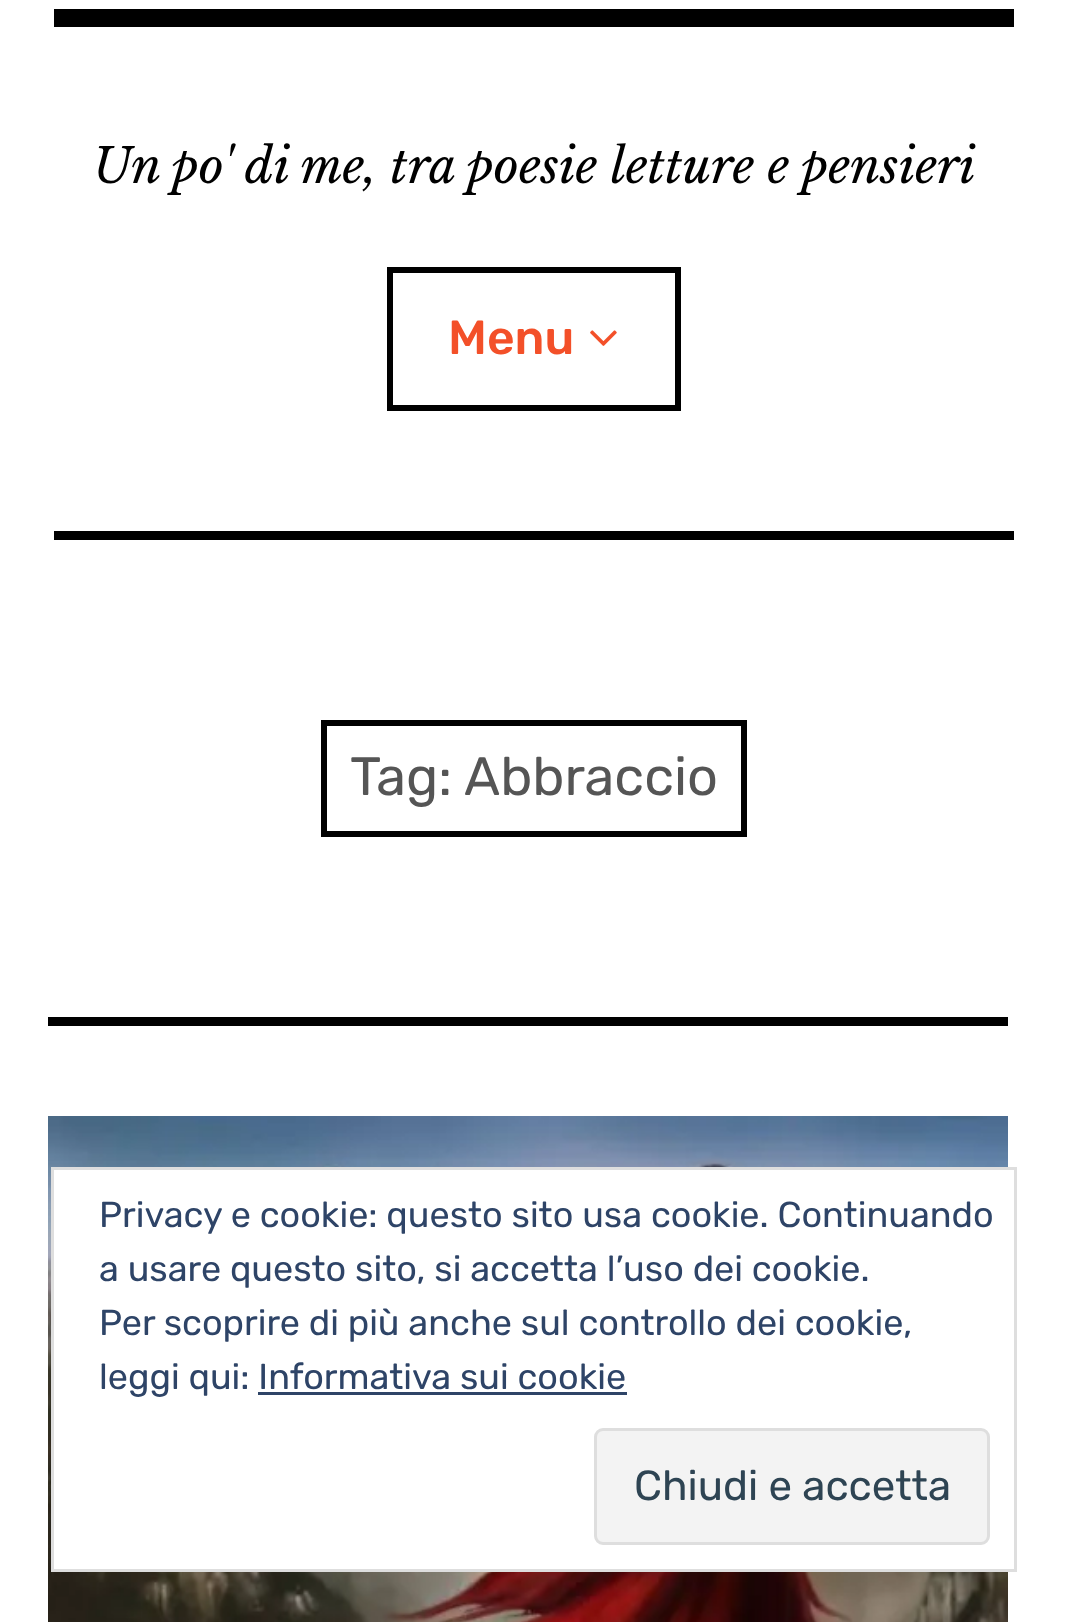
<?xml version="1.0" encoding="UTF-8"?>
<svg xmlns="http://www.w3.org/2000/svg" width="1067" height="1622">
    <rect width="100%" height="100%" fill="#FFFFFF"/>
    <rect x="54" y="9" width="960" height="18" fill="#000000"/>
    <text x="93" y="183" font-family="Libre Baskerville" font-size="48" font-style="italic" fill="#000000">Un po' di me, tra poesie letture e pensieri</text>
    <rect x="390" y="270" width="288" height="138" fill="none" stroke="#000000" stroke-width="6"/>
    <text x="448" y="354" font-family="Rubik" font-size="48" font-weight="500" fill="#F35029">Menu</text>
    <image x="590" y="330" width="27" height="16" href="img_01.png"/>
    <rect x="54" y="531" width="960" height="9" fill="#000000"/>
    <rect x="324" y="723" width="420" height="111" fill="none" stroke="#000000" stroke-width="6"/>
    <text x="350" y="795" font-family="Rubik" font-size="54" fill="#555555">Tag:</text>
    <text x="464" y="795" font-family="Rubik" font-size="54" fill="#555555">Abbraccio</text>
    <rect x="48" y="1017" width="960" height="9" fill="#000000"/>
    <image x="48" y="1116" width="960" height="506" href="img_02.png"/>
    <rect x="54" y="1170" width="954" height="399" fill="#FFFFFF"/>
    <rect x="52.5" y="1168.5" width="963" height="402" fill="none" stroke="#DEDEDE" stroke-width="3"/>
    <text font-family="Rubik" font-size="36" fill="#2E4467">
        <tspan x="99" y="1227">Privacy e cookie: questo sito usa cookie. Continuando</tspan>
        <tspan x="99" y="1281">a usare questo sito, si accetta l’uso dei cookie.</tspan>
        <tspan x="99" y="1335">Per scoprire di più anche sul controllo dei cookie,</tspan>
        <tspan x="99" y="1389">leggi qui: Informativa sui cookie</tspan>
    </text>
    <rect x="258" y="1392" width="369" height="3" fill="#2E4467"/>
    <rect x="595.5" y="1429.5" width="393" height="114" rx="7.5" fill="#F3F3F3" stroke="#DEDEDE" stroke-width="3"/>
    <text x="634" y="1500" font-family="Rubik" font-size="42" fill="#2E4453">Chiudi e accetta</text>
</svg>
